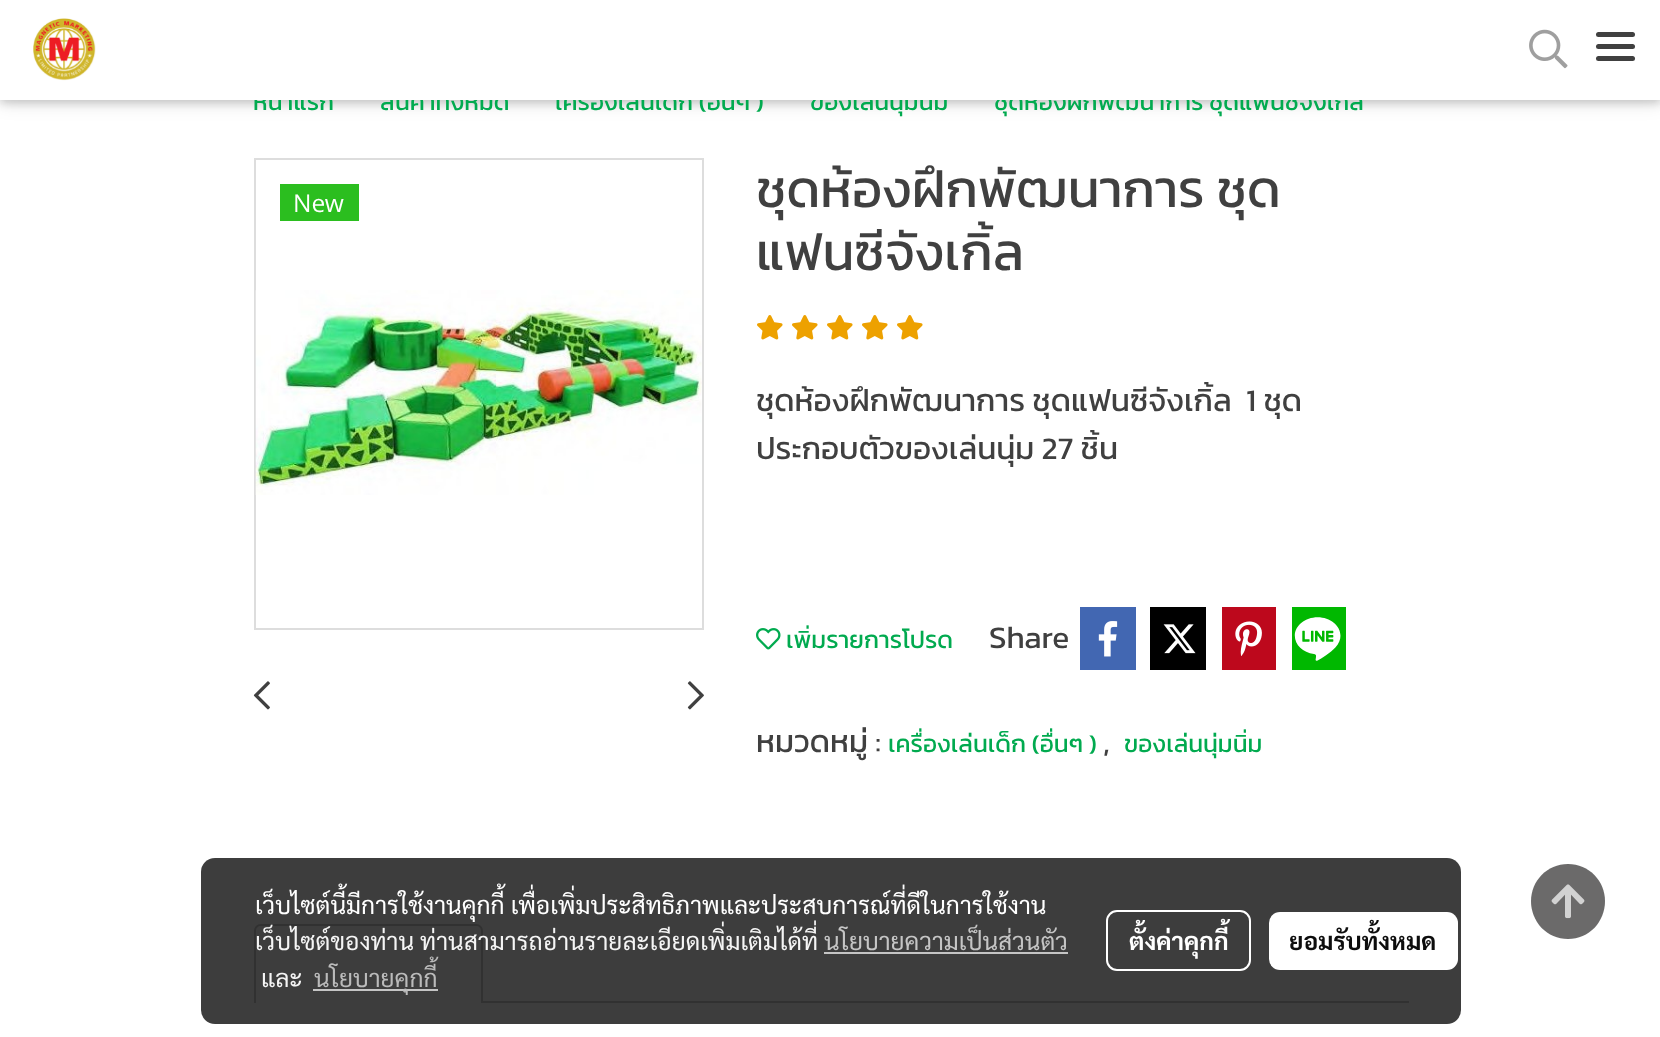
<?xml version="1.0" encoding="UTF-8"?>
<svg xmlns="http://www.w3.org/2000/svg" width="1660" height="1037">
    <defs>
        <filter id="blur1" x="-50%" y="-200%" width="200%" height="500%"><feGaussianBlur stdDeviation="9"/></filter>
        <filter id="blur2" x="-50%" y="-200%" width="200%" height="500%"><feGaussianBlur stdDeviation="4.5"/></filter>
    </defs>
    <rect width="100%" height="100%" fill="#FFFFFF"/>
    <rect x="0" y="4" width="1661" height="99" fill="#000000" fill-opacity="0.12" filter="url(#blur1)"/>
    <rect x="0" y="4" width="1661" height="99" fill="#000000" fill-opacity="0.16" filter="url(#blur2)"/>
    <text x="253" y="110" font-family="Kanit" font-size="24.5" fill="#01AA4F">หน้าแรก</text>
    <text x="380" y="110" font-family="Kanit" font-size="24.5" fill="#01AA4F">สินค้าทั้งหมด</text>
    <text x="555" y="110" font-family="Kanit" font-size="24.5" fill="#01AA4F">เครื่องเล่นเด็ก (อื่นๆ )</text>
    <text x="810" y="110" font-family="Kanit" font-size="24.5" fill="#01AA4F">ของเล่นนุ่มนิ่ม</text>
    <text x="994" y="110" font-family="Kanit" font-size="24.5" fill="#01AA4F">ชุดห้องฝึกพัฒนาการ ชุดแฟนซีจังเกิ้ล</text>
    <rect x="0" y="0" width="1660" height="100" fill="#FFFFFF"/>
    <image x="33" y="18" width="63" height="63" href="img_01.png"/>
    <image x="1529" y="29" width="39" height="40" href="img_02.png"/>
    <rect x="1596" y="44" width="39" height="5" rx="2.5" fill="#404040"/>
    <rect x="1596" y="32" width="39" height="5" rx="2.5" fill="#404040"/>
    <rect x="1596" y="56" width="39" height="5" rx="2.5" fill="#404040"/>
    <rect x="255" y="159" width="448" height="470" fill="none" stroke="#DDDDDD" stroke-width="2"/>
    <image x="255" y="290" width="447" height="205" href="img_03.png"/>
    <rect x="280" y="184" width="79" height="37" fill="#2BBE1F"/>
    <text x="293" y="212" font-family="Open Sans" font-size="24.5" fill="#FFFFFF">New</text>
    <image x="253" y="681" width="17" height="29" href="img_04.png"/>
    <image x="687" y="681" width="17" height="29" href="img_05.png"/>
    <text font-family="Kanit" font-size="52.5" fill="#404040">
        <tspan x="756" y="207">ชุดห้องฝึกพัฒนาการ ชุด</tspan>
        <tspan x="756" y="270">แฟนซีจังเกิ้ล</tspan>
    </text>
    <image x="757" y="315" width="26" height="25" href="img_06.png"/>
    <image x="792" y="315" width="26" height="25" href="img_06.png"/>
    <image x="827" y="315" width="26" height="25" href="img_06.png"/>
    <image x="862" y="315" width="26" height="25" href="img_06.png"/>
    <image x="897" y="315" width="26" height="25" href="img_06.png"/>
    <text font-family="Kanit" font-size="31.5" fill="#404040" xml:space="preserve"><tspan x="756" y="411">ชุดห้องฝึกพัฒนาการ ชุดแฟนซีจังเกิ้ล  1 ชุด</tspan><tspan x="756" y="459">ประกอบตัวของเล่นนุ่ม 27 ชิ้น</tspan></text>
    <text x="786" y="648" font-family="Kanit" font-size="24.5" fill="#01AA4F">เพิ่มรายการโปรด</text>
    <image x="756" y="628" width="25" height="22" href="img_07.png"/>
    <text x="989" y="648" font-family="Kanit" font-size="31.5" fill="#404040">Share</text>
    <rect x="1080" y="607" width="56" height="63" fill="#4267B2"/>
    <image x="1098" y="621" width="20" height="36" href="img_08.png"/>
    <rect x="1150" y="607" width="56" height="63" fill="#000000"/>
    <image x="1163" y="624" width="33" height="30" href="img_09.png"/>
    <rect x="1222" y="607" width="54" height="63" fill="#BD081C"/>
    <image x="1235" y="621" width="27" height="35" href="img_10.png"/>
    <rect x="1292" y="607" width="54" height="63" fill="#00B800"/>
    <image x="1294" y="617" width="47" height="44" href="img_11.png"/>
    <text x="756" y="752" font-family="Kanit" font-size="31.5" fill="#404040">หมวดหมู่ :</text>
    <text x="888" y="752" font-family="Kanit" font-size="24.5" fill="#01AA4F">เครื่องเล่นเด็ก (อื่นๆ )</text>
    <text x="1103" y="752" font-family="Kanit" font-size="31.5" fill="#404040">,</text>
    <text x="1124" y="752" font-family="Kanit" font-size="24.5" fill="#01AA4F">ของเล่นนุ่มนิ่ม</text>
    <path d="M 261 924 H 476 C 480 924 483 927 483 931 V 1003 H 254 V 931 C 254 927 257 924 261 924 Z M 261 926 H 476 C 479 926 481 928 481 931 V 1003 H 256 V 931 C 256 928 258 926 261 926 Z" fill="#CCCCCC" fill-rule="evenodd"/>
    <rect x="483" y="1001" width="926" height="2" fill="#CCCCCC"/>
    <rect x="201" y="858" width="1260" height="166" rx="14" fill="#000000" fill-opacity="0.76"/>
    <text x="255" y="914" font-family="Sarabun" font-size="24.5" fill="#FFFFFF">เว็บไซต์นี้มีการใช้งานคุกกี้ เพื่อเพิ่มประสิทธิภาพและประสบการณ์ที่ดีในการใช้งาน</text>
    <text x="255" y="950" font-family="Sarabun" font-size="24.5" fill="#F5F5F5">เว็บไซต์ของท่าน ท่านสามารถอ่านรายละเอียดเพิ่มเติมได้ที่</text>
    <text x="824" y="950" font-family="Sarabun" font-size="24.5" fill="#C5C5C5">นโยบายความเป็นส่วนตัว</text>
    <rect x="824" y="952" width="244" height="2" fill="#C5C5C5"/>
    <text x="261" y="987" font-family="Sarabun" font-size="24.5" fill="#F5F5F5">และ</text>
    <rect x="313" y="989" width="125" height="2" fill="#C5C5C5"/>
    <text x="314" y="987" font-family="Sarabun" font-size="24.5" fill="#BBBBBB">นโยบายคุกกี้</text>
    <rect x="1107" y="911" width="143" height="59" rx="10" fill="none" stroke="#FFFFFF" stroke-width="2"/>
    <text x="1129" y="950" font-family="Sarabun" font-size="24.5" font-weight="700" fill="#FFFFFF">ตั้งค่าคุกกี้</text>
    <rect x="1269" y="912" width="189" height="58" rx="11" fill="#FFFFFF"/>
    <text x="1289" y="950" font-family="Sarabun" font-size="24.5" font-weight="700" fill="#0D0D0D">ยอมรับทั้งหมด</text>
    <path d="M 1568 864 C 1547 864 1531 881 1531 901 C 1531 922 1547 939 1568 939 C 1589 939 1605 922 1605 901 C 1605 881 1589 864 1568 864 Z" fill="#6B6A6A"/>
    <image x="1551" y="884" width="34" height="35" href="img_12.png"/>
</svg>
